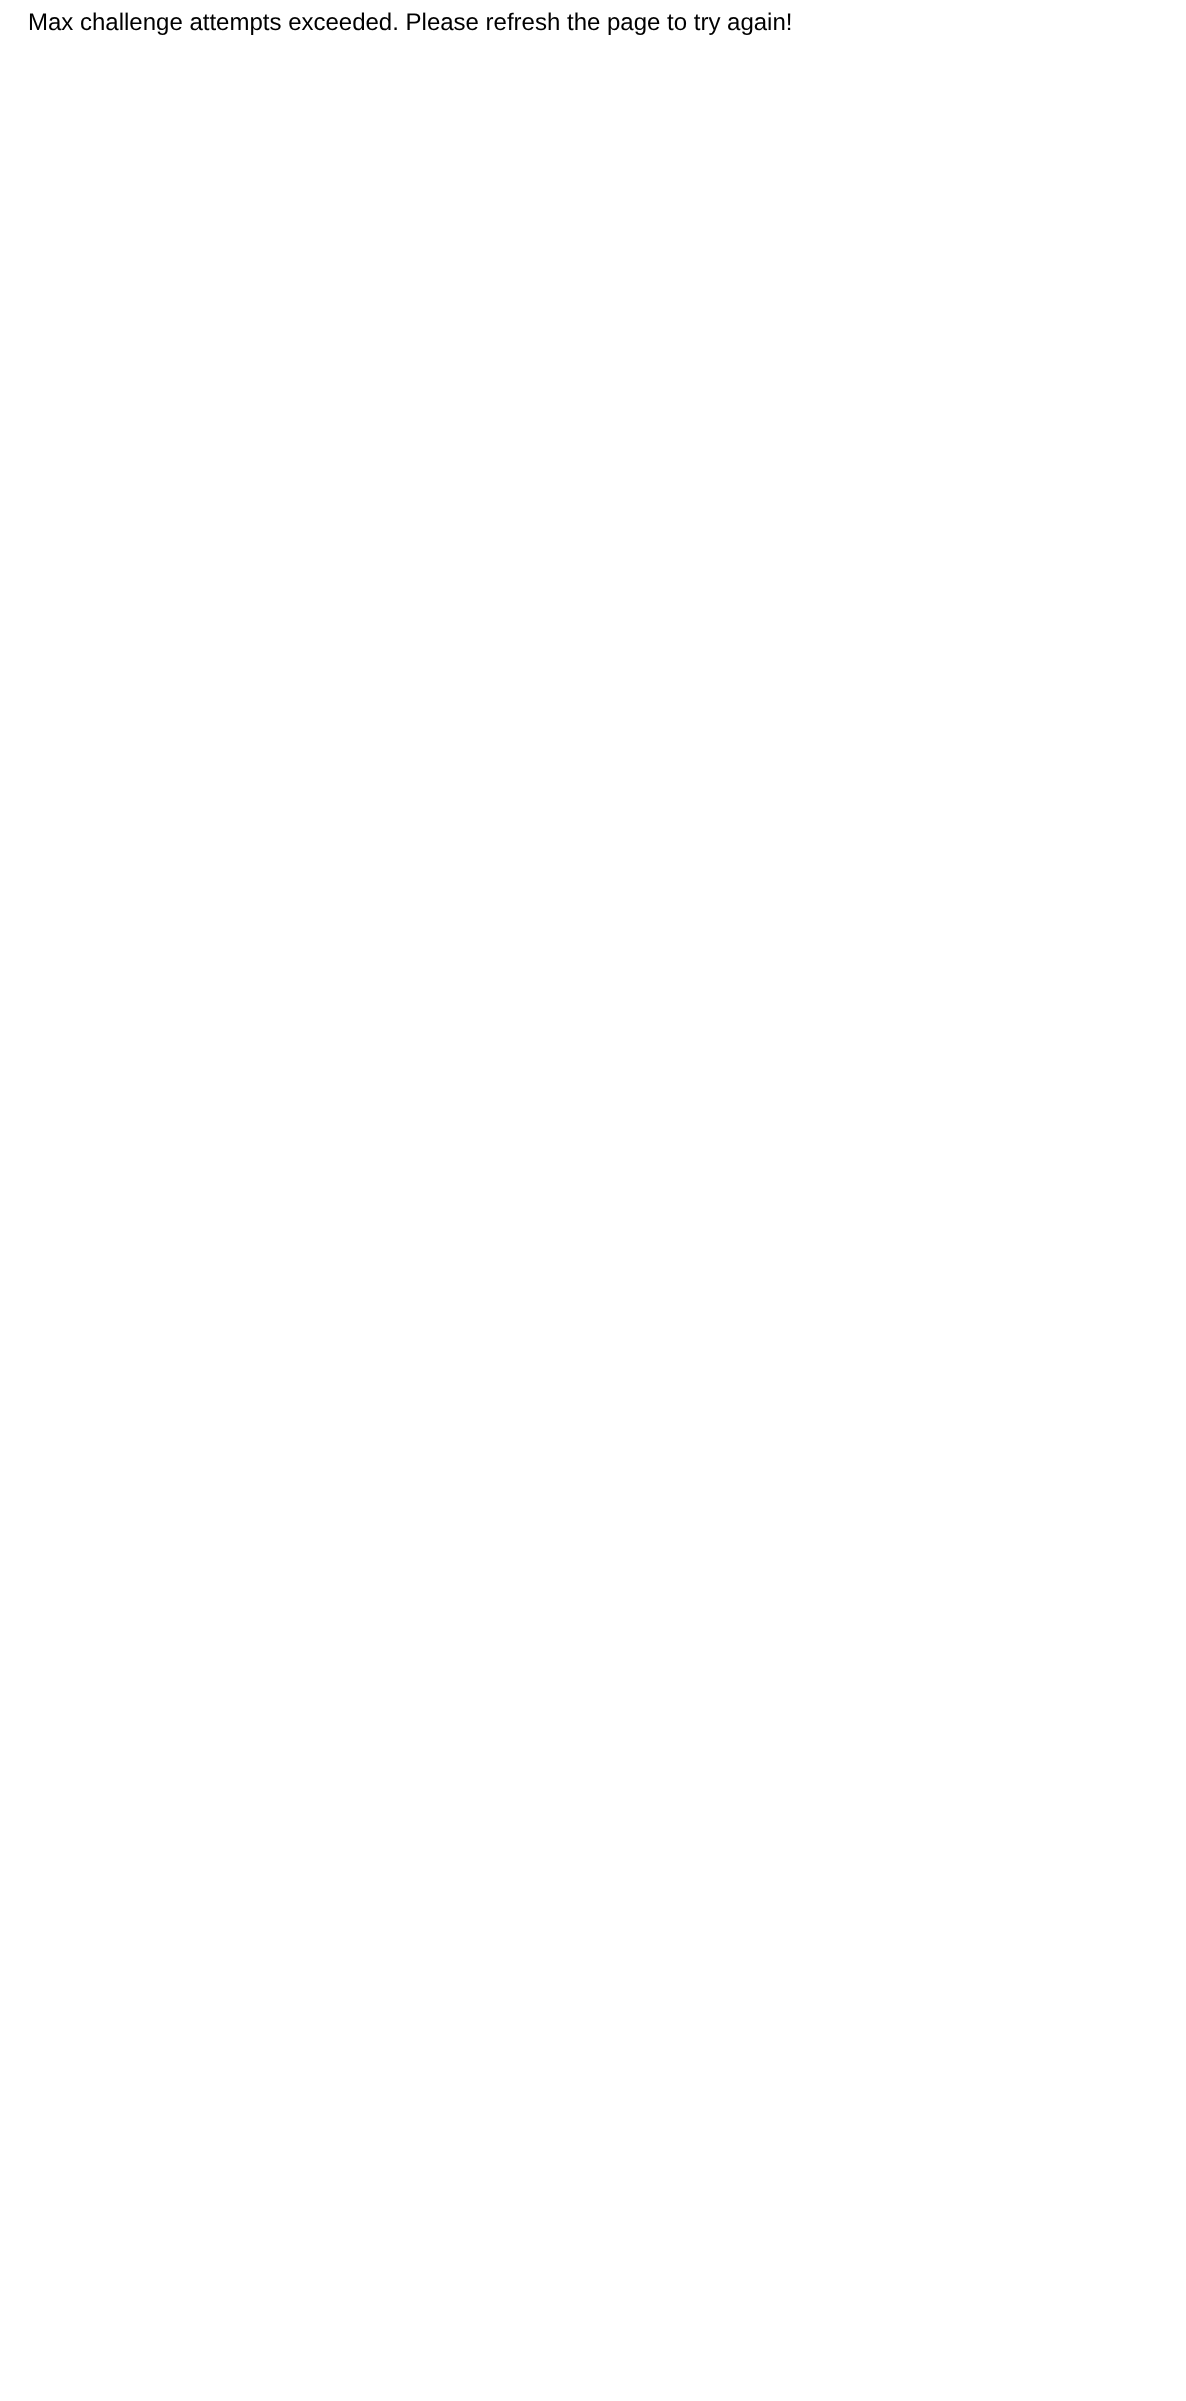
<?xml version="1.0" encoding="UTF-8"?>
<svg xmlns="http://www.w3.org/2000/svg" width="1186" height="2401">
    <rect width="100%" height="100%" fill="#FFFFFF"/>
    <text x="28" y="30" font-family="Liberation Sans" font-size="24" fill="#000000">Max challenge attempts exceeded. Please refresh the page to try again!</text>
</svg>
